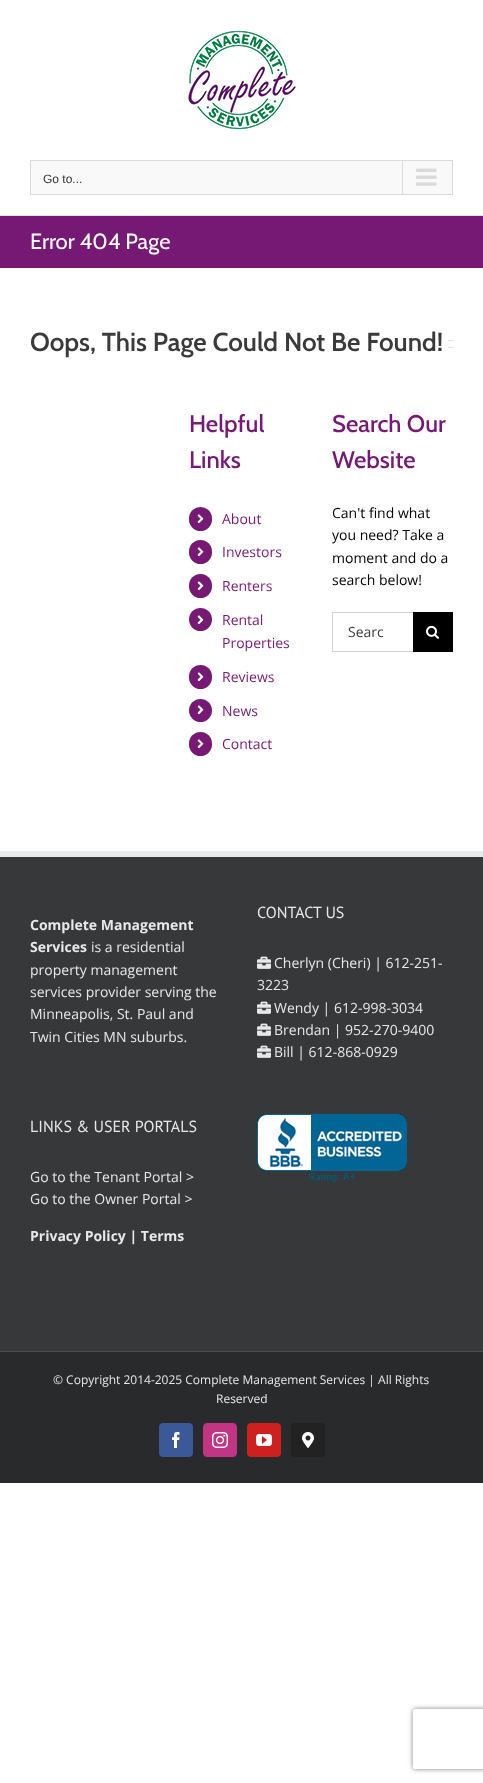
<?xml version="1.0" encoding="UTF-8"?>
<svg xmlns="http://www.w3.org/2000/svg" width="483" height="1783">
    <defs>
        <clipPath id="clip1"><path d="M 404 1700 H 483 V 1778 H 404 Z M 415 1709 H 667 C 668 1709 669 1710 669 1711 V 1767 C 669 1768 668 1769 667 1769 H 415 C 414 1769 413 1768 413 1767 V 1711 C 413 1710 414 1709 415 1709 Z" clip-rule="evenodd"/></clipPath>
        <filter id="blur1" x="-50%" y="-200%" width="200%" height="500%"><feGaussianBlur stdDeviation="2.5"/></filter>
    </defs>
    <rect width="100%" height="100%" fill="#FFFFFF"/>
    <rect x="0" y="215" width="483" height="1" fill="#E5E5E5"/>
    <image x="188" y="30" width="108" height="100" href="img_01.png"/>
    <rect x="30.5" y="160.5" width="422" height="34" fill="#F9F9F9" stroke="#DADADA"/>
    <text x="43" y="183" font-family="Liberation Sans" font-size="12" fill="#333333">Go to...</text>
    <rect x="402" y="161" width="1" height="33" fill="#DADADA"/>
    <image x="416" y="168" width="21" height="18" href="img_02.png"/>
    <rect x="0" y="216" width="483" height="52" fill="#751975"/>
    <text x="30" y="249" font-family="Cabin" font-size="22" fill="#FFFFFF">Error 404 Page</text>
    <text x="30" y="351" font-family="Cabin" font-size="26" font-weight="600" fill="#3A3A3A">Oops, This Page Could Not Be Found!</text>
    <rect x="448" y="340" width="5" height="1" fill="#E0DEDE"/>
    <rect x="448" y="347" width="5" height="1" fill="#E0DEDE"/>
    <text font-family="Cabin" font-size="24" font-weight="500" fill="#751975">
        <tspan x="189" y="432">Helpful</tspan>
        <tspan x="189" y="468">Links</tspan>
    </text>
    <rect x="189" y="507" width="23" height="24" rx="11.5" fill="#751975"/>
    <image x="197" y="514" width="7" height="10" href="img_03.png"/>
    <text x="222" y="524" font-family="Open Sans" font-size="14" fill="#751975">About</text>
    <rect x="189" y="540" width="23" height="24" rx="11.5" fill="#751975"/>
    <image x="197" y="547" width="7" height="10" href="img_03.png"/>
    <text x="222" y="557" font-family="Open Sans" font-size="14" fill="#751975">Investors</text>
    <rect x="189" y="574" width="23" height="24" rx="11.5" fill="#751975"/>
    <image x="197" y="581" width="7" height="10" href="img_03.png"/>
    <text x="222" y="591" font-family="Open Sans" font-size="14" fill="#751975">Renters</text>
    <circle cx="200.5" cy="619.5" r="11.5" fill="#751975"/>
    <image x="197" y="615" width="7" height="10" href="img_03.png"/>
    <text font-family="Open Sans" font-size="14" fill="#751975">
        <tspan x="222" y="625">Rental</tspan>
        <tspan x="222" y="648">Properties</tspan>
    </text>
    <rect x="189" y="665" width="23" height="24" rx="11.5" fill="#751975"/>
    <image x="197" y="672" width="7" height="10" href="img_03.png"/>
    <text x="222" y="682" font-family="Open Sans" font-size="14" fill="#751975">Reviews</text>
    <circle cx="200.5" cy="710.5" r="11.5" fill="#751975"/>
    <image x="197" y="705" width="7" height="10" href="img_03.png"/>
    <text x="222" y="716" font-family="Open Sans" font-size="14" fill="#751975">News</text>
    <rect x="189" y="732" width="23" height="24" rx="11.5" fill="#751975"/>
    <image x="197" y="739" width="7" height="10" href="img_03.png"/>
    <text x="222" y="749" font-family="Open Sans" font-size="14" fill="#751975">Contact</text>
    <text font-family="Cabin" font-size="24" font-weight="500" fill="#751975">
        <tspan x="332" y="432">Search Our</tspan>
        <tspan x="332" y="468">Website</tspan>
    </text>
    <text font-family="Open Sans" font-size="14" fill="#000000">
        <tspan x="332" y="518">Can't find what</tspan>
        <tspan x="332" y="540">you need? Take a</tspan>
        <tspan x="332" y="563">moment and do a</tspan>
        <tspan x="332" y="585">search below!</tspan>
    </text>
    <rect x="332" y="612" width="81" height="1" fill="#D2D2D2"/>
    <rect x="332" y="651" width="81" height="1" fill="#D2D2D2"/>
    <rect x="332" y="612" width="1" height="40" fill="#D2D2D2"/>
    <text x="348" y="637" font-family="Open Sans" font-size="14" fill="#3A3A3A">Searc</text>
    <rect x="413" y="612" width="40" height="40" fill="#000000"/>
    <image x="426" y="625" width="13" height="14" href="img_04.png"/>
    <rect x="0" y="857" width="483" height="494" fill="#363839"/>
    <rect x="0" y="851" width="483" height="6" fill="#E9EAEE"/>
    <text font-family="Open Sans" font-size="14" font-weight="700" fill="#E8E8E8">
        <tspan x="30" y="930">Complete Management</tspan>
        <tspan x="30" y="952">Services</tspan>
    </text>
    <text x="91" y="952" font-family="Open Sans" font-size="14" fill="#E8E8E8">is a residential</text>
    <text font-family="Open Sans" font-size="14" fill="#E8E8E8">
        <tspan x="30" y="975">property management</tspan>
        <tspan x="30" y="997">services provider serving the</tspan>
        <tspan x="30" y="1019">Minneapolis, St. Paul and</tspan>
        <tspan x="30" y="1042">Twin Cities MN suburbs.</tspan>
    </text>
    <text x="257" y="918" font-family="PT Sans" font-size="16" fill="#E8E8E8">CONTACT US</text>
    <image x="257" y="956" width="14" height="13" href="img_05.png"/>
    <text x="274" y="968" font-family="Open Sans" font-size="14" fill="#E8E8E8">Cherlyn (Cheri) | 612-251-</text>
    <text x="257" y="990" font-family="Open Sans" font-size="14" fill="#E8E8E8">3223</text>
    <image x="257" y="1001" width="14" height="13" href="img_05.png"/>
    <text x="274" y="1013" font-family="Open Sans" font-size="14" fill="#E8E8E8">Wendy | 612-998-3034</text>
    <image x="257" y="1023" width="14" height="13" href="img_05.png"/>
    <text x="274" y="1035" font-family="Open Sans" font-size="14" fill="#E8E8E8">Brendan | 952-270-9400</text>
    <image x="257" y="1045" width="14" height="13" href="img_05.png"/>
    <text x="274" y="1057" font-family="Open Sans" font-size="14" fill="#E8E8E8">Bill | 612-868-0929</text>
    <text x="30" y="1132" font-family="PT Sans" font-size="16" fill="#E8E8E8">LINKS &amp; USER PORTALS</text>
    <text font-family="Open Sans" font-size="14" fill="#E8E8E8">
        <tspan x="30" y="1182">Go to the Tenant Portal &gt;</tspan>
        <tspan x="30" y="1204">Go to the Owner Portal &gt;</tspan>
    </text>
    <text x="30" y="1241" font-family="Open Sans" font-size="14" font-weight="700" fill="#E8E8E8">Privacy Policy | Terms</text>
    <image x="257" y="1114" width="150" height="68" href="img_06.png"/>
    <rect x="0" y="1352" width="483" height="131" fill="#282A2B"/>
    <rect x="0" y="1351" width="483" height="1" fill="#4B4C4D"/>
    <text x="53" y="1384" font-family="Open Sans" font-size="12" fill="#E8E8E8">© Copyright 2014-2025 Complete Management Services | All Rights</text>
    <text x="216" y="1403" font-family="Open Sans" font-size="12" fill="#E8E8E8">Reserved</text>
    <rect x="159.5" y="1423.5" width="33" height="33" rx="3.5" fill="#3B5998" stroke="#3B5998"/>
    <image x="172" y="1432" width="8" height="16" href="img_07.png"/>
    <rect x="203.5" y="1423.5" width="33" height="33" rx="3.5" fill="#C13584" stroke="#C13584"/>
    <image x="212" y="1432" width="16" height="16" href="img_08.png"/>
    <rect x="247.5" y="1423.5" width="33" height="33" rx="3.5" fill="#CD201F" stroke="#CD201F"/>
    <image x="256" y="1434" width="16" height="12" href="img_09.png"/>
    <rect x="291" y="1423" width="34" height="34" rx="4" fill="#222222"/>
    <image x="302" y="1432" width="12" height="16" href="img_10.png"/>
    <g clip-path="url(#clip1)">
        <rect x="413" y="1709" width="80" height="60" rx="2" fill="#808080" filter="url(#blur1)"/>
    </g>
</svg>
